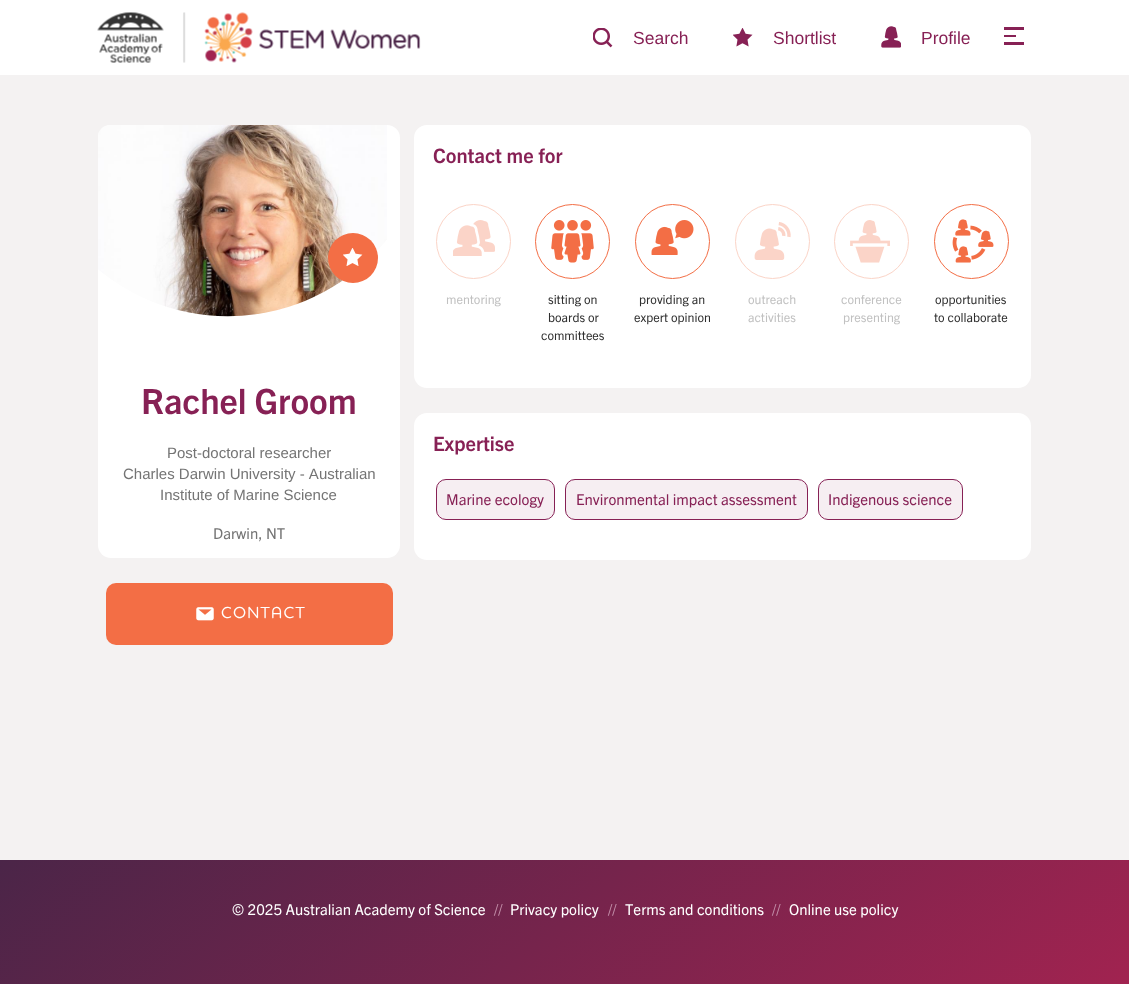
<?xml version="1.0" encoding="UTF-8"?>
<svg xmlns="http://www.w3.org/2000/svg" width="1129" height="984">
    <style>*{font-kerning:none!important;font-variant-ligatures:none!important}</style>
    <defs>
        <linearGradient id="g1" gradientUnits="userSpaceOnUse" x1="829" y1="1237" x2="301" y2="608"><stop offset="0" stop-color="#A12350"/><stop offset="1" stop-color="#4B2548"/></linearGradient>
    </defs>
    <rect width="100%" height="100%" fill="#F4F2F2"/>
    <rect x="0" y="0" width="1129" height="75" fill="#FFFFFF"/>
    <image x="97" y="12" width="324" height="51" href="img_01.png"/>
    <image x="593" y="28" width="20" height="20" href="img_02.png"/>
    <text x="633" y="44" font-family="Liberation Sans" font-size="17.5" fill="#872155">Search</text>
    <image x="733" y="28" width="20" height="19" href="img_03.png"/>
    <text x="773" y="44" font-family="Liberation Sans" font-size="17.5" fill="#872155">Shortlist</text>
    <image x="881" y="26" width="20" height="22" href="img_04.png"/>
    <text x="921" y="44" font-family="Liberation Sans" font-size="17.5" fill="#872155">Profile</text>
    <rect x="1004" y="27" width="20" height="3" fill="#872155"/>
    <rect x="1004" y="35" width="12" height="2" fill="#872155"/>
    <rect x="1004" y="42" width="20" height="3" fill="#872155"/>
    <rect x="98" y="125" width="302" height="433" rx="13" fill="#FFFFFF"/>
    <image x="98" y="125" width="289" height="192" href="img_05.png"/>
    <circle cx="353" cy="258" r="25" fill="#F36E45"/>
    <image x="343" y="248" width="20" height="18" href="img_06.png"/>
    <text x="141" y="414" font-family="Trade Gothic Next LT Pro" font-size="35" font-weight="700" fill="#872155">Rachel Groom</text>
    <text x="167" y="458" font-family="Liberation Sans" font-size="15" fill="#747474">Post-doctoral researcher</text>
    <text x="123" y="479" font-family="Liberation Sans" font-size="15" fill="#747474">Charles Darwin University - Australian</text>
    <text x="160" y="500" font-family="Liberation Sans" font-size="15" fill="#747474">Institute of Marine Science</text>
    <text x="213" y="539" font-family="Trade Gothic Next LT Pro" font-size="15" fill="#747474">Darwin, NT</text>
    <rect x="106" y="583" width="287" height="62" rx="10" fill="#F36E45"/>
    <image x="196" y="607" width="18" height="14" href="img_07.png"/>
    <text x="221" y="618" font-family="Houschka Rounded" font-size="16.25" font-weight="500" letter-spacing="1.25" fill="#FFFFFF">CONTACT</text>
    <rect x="414" y="125" width="617" height="263" rx="13" fill="#FFFFFF"/>
    <text x="433" y="163" font-family="Trade Gothic Next LT Pro" font-size="20" font-weight="700" fill="#872155">Contact me for</text>
    <circle cx="473.5" cy="241.5" r="37" fill="none" stroke="#FBD4C7"/>
    <image x="453" y="220" width="42" height="36" href="img_08.png"/>
    <text x="446" y="304" font-family="Trade Gothic Next LT Pro" font-size="12.5" fill="#C1C1C1">mentoring</text>
    <circle cx="572.5" cy="241.5" r="37" fill="none" stroke="#F36E45"/>
    <image x="551" y="220" width="43" height="43" href="img_09.png"/>
    <text font-family="Trade Gothic Next LT Pro" font-size="12.5" fill="#2F2F2F">
        <tspan x="548" y="304">sitting on</tspan>
        <tspan x="548" y="322">boards or</tspan>
    </text>
    <text x="541" y="340" font-family="Trade Gothic Next LT Pro" font-size="12.5" fill="#2F2F2F">committees</text>
    <circle cx="672.5" cy="241.5" r="37" fill="none" stroke="#F36E45"/>
    <image x="651" y="220" width="43" height="35" href="img_10.png"/>
    <text x="639" y="304" font-family="Trade Gothic Next LT Pro" font-size="12.5" fill="#2F2F2F">providing an</text>
    <text x="634" y="322" font-family="Trade Gothic Next LT Pro" font-size="12.5" fill="#2F2F2F">expert opinion</text>
    <circle cx="772.5" cy="241.5" r="37" fill="none" stroke="#FBD4C7"/>
    <image x="754" y="222" width="37" height="38" href="img_11.png"/>
    <text font-family="Trade Gothic Next LT Pro" font-size="12.5" fill="#C1C1C1">
        <tspan x="748" y="304">outreach</tspan>
        <tspan x="748" y="322">activities</tspan>
    </text>
    <circle cx="871.5" cy="241.5" r="37" fill="none" stroke="#FBD4C7"/>
    <image x="850" y="220" width="40" height="43" href="img_12.png"/>
    <text x="841" y="304" font-family="Trade Gothic Next LT Pro" font-size="12.5" fill="#C1C1C1">conference</text>
    <text x="843" y="322" font-family="Trade Gothic Next LT Pro" font-size="12.5" fill="#C1C1C1">presenting</text>
    <circle cx="971.5" cy="241.5" r="37" fill="none" stroke="#F36E45"/>
    <image x="952" y="219" width="42" height="44" href="img_13.png"/>
    <text x="935" y="304" font-family="Trade Gothic Next LT Pro" font-size="12.5" fill="#2F2F2F">opportunities</text>
    <text x="934" y="322" font-family="Trade Gothic Next LT Pro" font-size="12.5" fill="#2F2F2F">to collaborate</text>
    <rect x="414" y="413" width="617" height="147" rx="13" fill="#FFFFFF"/>
    <text x="433" y="451" font-family="Trade Gothic Next LT Pro" font-size="20" font-weight="700" fill="#872155">Expertise</text>
    <rect x="436.5" y="479.5" width="118" height="40" rx="9.5" fill="#F6EEF2" stroke="#872155"/>
    <text x="446" y="505" font-family="Trade Gothic Next LT Pro" font-size="15" fill="#872155">Marine ecology</text>
    <rect x="565.5" y="479.5" width="242" height="40" rx="9.5" fill="#F6EEF2" stroke="#872155"/>
    <text x="576" y="505" font-family="Trade Gothic Next LT Pro" font-size="15" fill="#872155">Environmental impact assessment</text>
    <rect x="818.5" y="479.5" width="144" height="40" rx="9.5" fill="#F6EEF2" stroke="#872155"/>
    <text x="828" y="505" font-family="Trade Gothic Next LT Pro" font-size="15" fill="#872155">Indigenous science</text>
    <rect x="0" y="860" width="1129" height="124" fill="url(#g1)"/>
    <text x="232" y="915" font-family="Trade Gothic Next LT Pro" font-size="15" fill="#FFFFFF">© 2025 Australian Academy of Science</text>
    <text x="494" y="915" font-family="Trade Gothic Next LT Pro" font-size="15" fill="#C390AA">//</text>
    <text x="510" y="915" font-family="Trade Gothic Next LT Pro" font-size="15" fill="#FFFFFF">Privacy policy</text>
    <text x="608" y="915" font-family="Trade Gothic Next LT Pro" font-size="15" fill="#C390AA">//</text>
    <text x="625" y="915" font-family="Trade Gothic Next LT Pro" font-size="15" fill="#FFFFFF">Terms and conditions</text>
    <text x="772" y="915" font-family="Trade Gothic Next LT Pro" font-size="15" fill="#C390AA">//</text>
    <text x="789" y="915" font-family="Trade Gothic Next LT Pro" font-size="15" fill="#FFFFFF">Online use policy</text>
</svg>
